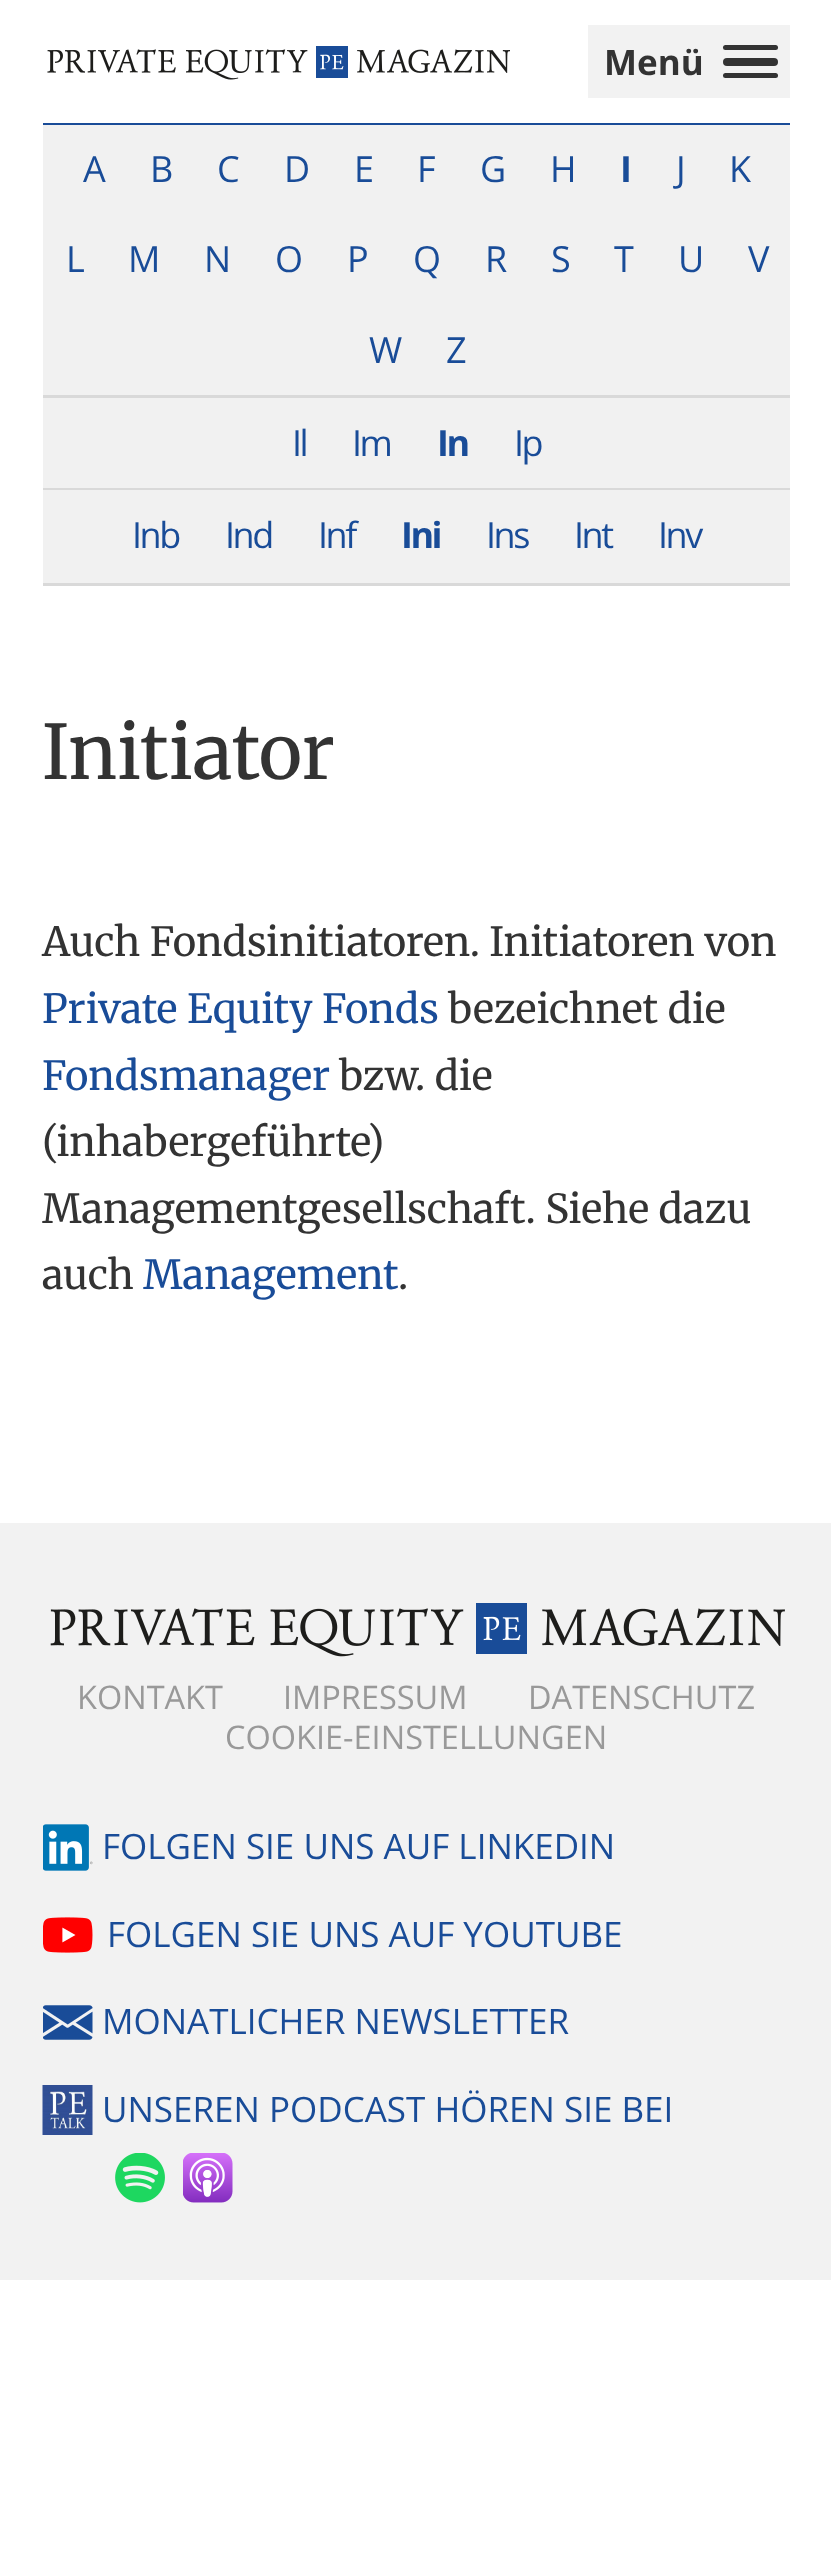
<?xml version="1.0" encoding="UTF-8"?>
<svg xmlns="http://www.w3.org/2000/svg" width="831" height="2559">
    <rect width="100%" height="100%" fill="#FFFFFF"/>
    <image x="47" y="46" width="463" height="34" href="img_01.png"/>
    <rect x="588" y="25" width="202" height="73" fill="#F2F2F2"/>
    <text x="604" y="75" font-family="Open Sans" font-size="35" font-weight="700" fill="#333333">Menü</text>
    <rect x="723" y="58" width="55" height="8" rx="4" fill="#333333"/>
    <rect x="723" y="45" width="55" height="5" rx="2.5" fill="#333333"/>
    <rect x="723" y="73" width="55" height="5" rx="2.5" fill="#333333"/>
    <rect x="43" y="123" width="747" height="2" fill="#194C98"/>
    <rect x="43" y="125" width="747" height="270" fill="#F1F1F1"/>
    <rect x="43" y="395" width="747" height="3" fill="#D9D9D9"/>
    <text x="83" y="182" font-family="Open Sans" font-size="36" letter-spacing="-2.5" fill="#194C98">A</text>
    <text x="150" y="182" font-family="Open Sans" font-size="36" letter-spacing="-2.5" fill="#194C98">B</text>
    <text x="217" y="182" font-family="Open Sans" font-size="36" letter-spacing="-2.5" fill="#194C98">C</text>
    <text x="284" y="182" font-family="Open Sans" font-size="36" letter-spacing="-2.5" fill="#194C98">D</text>
    <text x="354" y="182" font-family="Open Sans" font-size="36" letter-spacing="-2.5" fill="#194C98">E</text>
    <text x="417" y="182" font-family="Open Sans" font-size="36" letter-spacing="-2.5" fill="#194C98">F</text>
    <text x="480" y="182" font-family="Open Sans" font-size="36" letter-spacing="-2.5" fill="#194C98">G</text>
    <text x="550" y="182" font-family="Open Sans" font-size="36" letter-spacing="-2.5" fill="#194C98">H</text>
    <text x="620" y="182" font-family="Open Sans" font-size="36" font-weight="700" letter-spacing="-2.5" fill="#194C98">I</text>
    <text x="676" y="182" font-family="Open Sans" font-size="36" letter-spacing="-2.5" fill="#194C98">J</text>
    <text x="729" y="182" font-family="Open Sans" font-size="36" letter-spacing="-2.5" fill="#194C98">K</text>
    <text x="66" y="272" font-family="Open Sans" font-size="36" letter-spacing="-2.5" fill="#194C98">L</text>
    <text x="128" y="272" font-family="Open Sans" font-size="36" letter-spacing="-2.5" fill="#194C98">M</text>
    <text x="204" y="272" font-family="Open Sans" font-size="36" letter-spacing="-2.5" fill="#194C98">N</text>
    <text x="275" y="272" font-family="Open Sans" font-size="36" letter-spacing="-2.5" fill="#194C98">O</text>
    <text x="347" y="272" font-family="Open Sans" font-size="36" letter-spacing="-2.5" fill="#194C98">P</text>
    <text x="413" y="272" font-family="Open Sans" font-size="36" letter-spacing="-2.5" fill="#194C98">Q</text>
    <text x="485" y="272" font-family="Open Sans" font-size="36" letter-spacing="-2.5" fill="#194C98">R</text>
    <text x="551" y="272" font-family="Open Sans" font-size="36" letter-spacing="-2.5" fill="#194C98">S</text>
    <text x="614" y="272" font-family="Open Sans" font-size="36" letter-spacing="-2.5" fill="#194C98">T</text>
    <text x="678" y="272" font-family="Open Sans" font-size="36" letter-spacing="-2.5" fill="#194C98">U</text>
    <text x="748" y="272" font-family="Open Sans" font-size="36" letter-spacing="-2.5" fill="#194C98">V</text>
    <text x="369" y="363" font-family="Open Sans" font-size="36" letter-spacing="-2.5" fill="#194C98">W</text>
    <text x="446" y="363" font-family="Open Sans" font-size="36" letter-spacing="-2.5" fill="#194C98">Z</text>
    <rect x="43" y="398" width="747" height="90" fill="#F1F1F1"/>
    <rect x="43" y="488" width="747" height="2" fill="#D9D9D9"/>
    <text x="292" y="456" font-family="Open Sans" font-size="36" letter-spacing="-2.5" fill="#194C98">Il</text>
    <text x="352" y="456" font-family="Open Sans" font-size="36" letter-spacing="-2.5" fill="#194C98">Im</text>
    <text x="437" y="456" font-family="Open Sans" font-size="36" font-weight="700" letter-spacing="-2.5" fill="#194C98">In</text>
    <text x="514" y="456" font-family="Open Sans" font-size="36" letter-spacing="-2.5" fill="#194C98">Ip</text>
    <rect x="43" y="490" width="747" height="93" fill="#F1F1F1"/>
    <rect x="43" y="583" width="747" height="3" fill="#D9D9D9"/>
    <text x="132" y="548" font-family="Open Sans" font-size="36" letter-spacing="-2.5" fill="#194C98">Inb</text>
    <text x="225" y="548" font-family="Open Sans" font-size="36" letter-spacing="-2.5" fill="#194C98">Ind</text>
    <text x="318" y="548" font-family="Open Sans" font-size="36" letter-spacing="-2.5" fill="#194C98">Inf</text>
    <text x="401" y="548" font-family="Open Sans" font-size="36" font-weight="700" letter-spacing="-2.5" fill="#194C98">Ini</text>
    <text x="486" y="548" font-family="Open Sans" font-size="36" letter-spacing="-2.5" fill="#194C98">Ins</text>
    <text x="574" y="548" font-family="Open Sans" font-size="36" letter-spacing="-2.5" fill="#194C98">Int</text>
    <text x="658" y="548" font-family="Open Sans" font-size="36" letter-spacing="-2.5" fill="#194C98">Inv</text>
    <text x="42" y="779" font-family="Merriweather" font-size="75" fill="#333333">Initiator</text>
    <text x="42" y="956" font-family="'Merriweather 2'" font-size="40" fill="#333333">Auch Fondsinitiatoren. Initiatoren von</text>
    <text x="42" y="1023" font-family="'Merriweather 2'" font-size="40" fill="#194C98">Private Equity Fonds</text>
    <text x="448" y="1023" font-family="'Merriweather 2'" font-size="40" fill="#333333">bezeichnet die</text>
    <text x="42" y="1090" font-family="'Merriweather 2'" font-size="40" fill="#194C98">Fondsmanager</text>
    <text x="339" y="1090" font-family="'Merriweather 2'" font-size="40" fill="#333333">bzw. die</text>
    <text font-family="'Merriweather 2'" font-size="40" fill="#333333">
        <tspan x="42" y="1156">(inhabergeführte)</tspan>
        <tspan x="42" y="1223">Managementgesellschaft. Siehe dazu</tspan>
        <tspan x="42" y="1289">auch</tspan>
    </text>
    <text x="143" y="1289" font-family="'Merriweather 2'" font-size="40" fill="#194C98">Management</text>
    <text x="398" y="1289" font-family="'Merriweather 2'" font-size="40" fill="#333333">.</text>
    <rect x="0" y="1523" width="831" height="757" fill="#F2F2F2"/>
    <image x="50" y="1603" width="735" height="54" href="img_02.png"/>
    <text x="77" y="1709" font-family="Open Sans" font-size="32.5" fill="#999999">KONTAKT</text>
    <text x="283" y="1709" font-family="Open Sans" font-size="32.5" fill="#999999">IMPRESSUM</text>
    <text x="528" y="1709" font-family="Open Sans" font-size="32.5" fill="#999999">DATENSCHUTZ</text>
    <text x="225" y="1749" font-family="Open Sans" font-size="32.5" fill="#999999">COOKIE-EINSTELLUNGEN</text>
    <image x="43" y="1824" width="50" height="47" href="img_03.png"/>
    <text x="102" y="1859" font-family="Open Sans" font-size="35" fill="#194C98">FOLGEN SIE UNS AUF LINKEDIN</text>
    <image x="43" y="1917" width="50" height="36" href="img_04.png"/>
    <text x="107" y="1947" font-family="Open Sans" font-size="35" fill="#194C98">FOLGEN SIE UNS AUF YOUTUBE</text>
    <image x="43" y="2005" width="50" height="35" href="img_05.png"/>
    <text x="102" y="2034" font-family="Open Sans" font-size="35" fill="#194C98">MONATLICHER NEWSLETTER</text>
    <image x="42" y="2085" width="51" height="50" href="img_06.png"/>
    <text x="102" y="2122" font-family="Open Sans" font-size="35" fill="#194C98">UNSEREN PODCAST HÖREN SIE BEI</text>
    <image x="115" y="2153" width="50" height="50" href="img_07.png"/>
    <image x="183" y="2153" width="50" height="50" href="img_08.png"/>
</svg>
